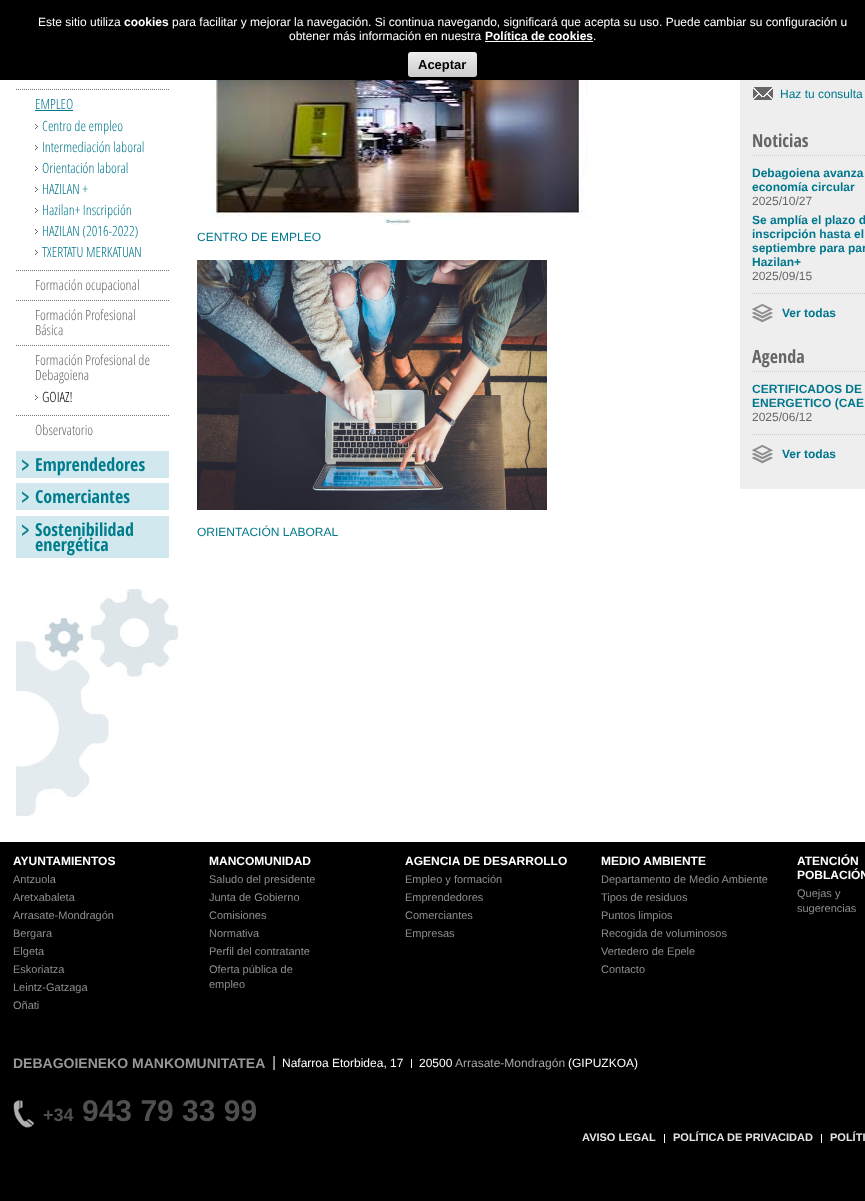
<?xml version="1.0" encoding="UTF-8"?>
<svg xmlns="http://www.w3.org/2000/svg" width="865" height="1201">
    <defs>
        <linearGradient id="g1" gradientUnits="userSpaceOnUse" x1="443" y1="52" x2="443" y2="77"><stop offset="0" stop-color="#EEEEEE"/><stop offset="1" stop-color="#CCCCCC"/></linearGradient>
    </defs>
    <rect width="100%" height="100%" fill="#000000"/>
    <text x="38" y="26" font-family="Liberation Sans" font-size="12" fill="#FFFFFF">Este sitio utiliza</text>
    <text x="124" y="26" font-family="Liberation Sans" font-size="12" font-weight="700" fill="#FFFFFF">cookies</text>
    <text x="172" y="26" font-family="Liberation Sans" font-size="12" fill="#FFFFFF">para facilitar y mejorar la navegación. Si continua navegando, significará que acepta su uso. Puede cambiar su configuración u</text>
    <text x="289" y="40" font-family="Liberation Sans" font-size="12" fill="#FFFFFF">obtener más información en nuestra</text>
    <text x="485" y="40" font-family="Liberation Sans" font-size="12" font-weight="700" fill="#FFFFFF">Política de cookies</text>
    <rect x="485" y="41" width="108" height="1" fill="#FFFFFF"/>
    <text x="593" y="40" font-family="Liberation Sans" font-size="12" fill="#FFFFFF">.</text>
    <rect x="408" y="52" width="69" height="25" rx="3" fill="url(#g1)"/>
    <text x="418" y="69" font-family="Liberation Sans" font-size="13" font-weight="700" fill="#000000">Aceptar</text>
    <rect x="0" y="80" width="865" height="762" fill="#FFFFFF"/>
    <image x="16" y="589" width="162" height="227" href="img_01.png"/>
    <image x="16" y="89" width="153" height="1" href="img_02.png"/>
    <text x="35" y="109" font-family="Open Sans" font-size="14" font-weight="300" fill="#00778D">EMPLEO</text>
    <rect x="35" y="110" width="38" height="1" fill="#007A8E"/>
    <image x="35" y="124" width="3" height="5" href="img_03.png"/>
    <text x="42" y="131" font-family="Open Sans" font-size="14" font-weight="300" fill="#00778D">Centro de empleo</text>
    <image x="35" y="145" width="3" height="5" href="img_03.png"/>
    <text x="42" y="152" font-family="Open Sans" font-size="14" font-weight="300" fill="#00778D">Intermediación laboral</text>
    <image x="35" y="166" width="3" height="5" href="img_03.png"/>
    <text x="42" y="173" font-family="Open Sans" font-size="14" font-weight="300" fill="#00778D">Orientación laboral</text>
    <image x="35" y="187" width="3" height="5" href="img_03.png"/>
    <text x="42" y="194" font-family="Open Sans" font-size="14" font-weight="300" fill="#00778D">HAZILAN +</text>
    <image x="35" y="208" width="3" height="5" href="img_03.png"/>
    <text x="42" y="215" font-family="Open Sans" font-size="14" font-weight="300" fill="#00778D">Hazilan+ Inscripción</text>
    <image x="35" y="229" width="3" height="5" href="img_03.png"/>
    <text x="42" y="236" font-family="Open Sans" font-size="14" font-weight="300" fill="#00778D">HAZILAN (2016-2022)</text>
    <image x="35" y="250" width="3" height="5" href="img_03.png"/>
    <text x="42" y="257" font-family="Open Sans" font-size="14" font-weight="300" fill="#00778D">TXERTATU MERKATUAN</text>
    <image x="16" y="270" width="153" height="1" href="img_02.png"/>
    <text x="35" y="290" font-family="Open Sans" font-size="14" font-weight="300" fill="#666666">Formación ocupacional</text>
    <image x="16" y="300" width="153" height="1" href="img_02.png"/>
    <text font-family="Open Sans" font-size="14" font-weight="300" fill="#666666">
        <tspan x="35" y="320">Formación Profesional</tspan>
        <tspan x="35" y="335">Básica</tspan>
    </text>
    <image x="16" y="345" width="153" height="1" href="img_02.png"/>
    <text font-family="Open Sans" font-size="14" font-weight="300" fill="#666666">
        <tspan x="35" y="365">Formación Profesional de</tspan>
        <tspan x="35" y="380">Debagoiena</tspan>
    </text>
    <image x="35" y="395" width="3" height="5" href="img_03.png"/>
    <text x="42" y="402" font-family="Open Sans" font-size="14" font-weight="300" fill="#000000">GOIAZ!</text>
    <image x="16" y="415" width="153" height="1" href="img_02.png"/>
    <text x="35" y="435" font-family="Open Sans" font-size="14" font-weight="300" fill="#666666">Observatorio</text>
    <rect x="16" y="451" width="153" height="27" fill="#D2E8EF"/>
    <image x="22" y="459" width="7" height="12" href="img_04.png"/>
    <text x="35" y="471" font-family="Open Sans Condensed" font-size="18" font-weight="700" fill="#007D8C">Emprendedores</text>
    <rect x="16" y="483" width="153" height="27" fill="#D2E8EF"/>
    <image x="22" y="491" width="7" height="12" href="img_04.png"/>
    <text x="35" y="503" font-family="Open Sans Condensed" font-size="18" font-weight="700" fill="#007D8C">Comerciantes</text>
    <rect x="16" y="516" width="153" height="42" fill="#D2E8EF"/>
    <image x="22" y="524" width="7" height="12" href="img_04.png"/>
    <text font-family="Open Sans Condensed" font-size="18" font-weight="700" fill="#007D8C">
        <tspan x="35" y="536">Sostenibilidad</tspan>
        <tspan x="35" y="551">energética</tspan>
    </text>
    <image x="202" y="80" width="386" height="145" href="img_05.png"/>
    <text x="197" y="241" font-family="Liberation Sans" font-size="12" fill="#00778D">CENTRO DE EMPLEO</text>
    <image x="197" y="260" width="350" height="250" href="img_06.png"/>
    <text x="197" y="536" font-family="Liberation Sans" font-size="12" fill="#00778D">ORIENTACIÓN LABORAL</text>
    <rect x="740" y="80" width="125" height="409" fill="#EEEEEE"/>
    <image x="753" y="87" width="20" height="13" href="img_07.png"/>
    <text x="780" y="98" font-family="Liberation Sans" font-size="12" fill="#00778D">Haz tu consulta</text>
    <path d="M 752 155.5 H 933" fill="none" stroke="#CCCCCC" stroke-dasharray="1 1"/>
    <text x="752" y="147" font-family="Open Sans Condensed" font-size="18" font-weight="700" fill="#666666">Noticias</text>
    <text font-family="Liberation Sans" font-size="12" font-weight="700" fill="#00778D">
        <tspan x="752" y="177">Debagoiena avanza</tspan>
        <tspan x="752" y="191">economía circular</tspan>
    </text>
    <text x="752" y="205" font-family="Liberation Sans" font-size="12" fill="#666666">2025/10/27</text>
    <text font-family="Liberation Sans" font-size="12" font-weight="700" fill="#00778D">
        <tspan x="752" y="224">Se amplía el plazo d</tspan>
        <tspan x="752" y="238">inscripción hasta el</tspan>
        <tspan x="752" y="252">septiembre para par</tspan>
        <tspan x="752" y="266">Hazilan+</tspan>
    </text>
    <text x="752" y="280" font-family="Liberation Sans" font-size="12" fill="#666666">2025/09/15</text>
    <image x="752" y="304" width="21" height="19" href="img_08.png"/>
    <path d="M 752 293.5 H 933" fill="none" stroke="#CCCCCC" stroke-dasharray="1 1"/>
    <text x="782" y="317" font-family="Liberation Sans" font-size="12" font-weight="700" fill="#00778D">Ver todas</text>
    <path d="M 752 371.5 H 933" fill="none" stroke="#CCCCCC" stroke-dasharray="1 1"/>
    <text x="752" y="363" font-family="Open Sans Condensed" font-size="18" font-weight="700" fill="#666666">Agenda</text>
    <text font-family="Liberation Sans" font-size="12" font-weight="700" fill="#00778D">
        <tspan x="752" y="393">CERTIFICADOS DE</tspan>
        <tspan x="752" y="407">ENERGETICO (CAE</tspan>
    </text>
    <text x="752" y="421" font-family="Liberation Sans" font-size="12" fill="#666666">2025/06/12</text>
    <image x="752" y="445" width="21" height="19" href="img_08.png"/>
    <path d="M 752 434.5 H 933" fill="none" stroke="#CCCCCC" stroke-dasharray="1 1"/>
    <text x="782" y="458" font-family="Liberation Sans" font-size="12" font-weight="700" fill="#00778D">Ver todas</text>
    <text x="13" y="865" font-family="Liberation Sans" font-size="12" font-weight="700" fill="#FFFFFF">AYUNTAMIENTOS</text>
    <text font-family="Liberation Sans" font-size="11" fill="#8E8E8E">
        <tspan x="13" y="883">Antzuola</tspan>
        <tspan x="13" y="901">Aretxabaleta</tspan>
        <tspan x="13" y="919">Arrasate-Mondragón</tspan>
        <tspan x="13" y="937">Bergara</tspan>
        <tspan x="13" y="955">Elgeta</tspan>
        <tspan x="13" y="973">Eskoriatza</tspan>
        <tspan x="13" y="991">Leintz-Gatzaga</tspan>
        <tspan x="13" y="1009">Oñati</tspan>
    </text>
    <text x="209" y="865" font-family="Liberation Sans" font-size="12" font-weight="700" fill="#FFFFFF">MANCOMUNIDAD</text>
    <text font-family="Liberation Sans" font-size="11" fill="#8E8E8E">
        <tspan x="209" y="883">Saludo del presidente</tspan>
        <tspan x="209" y="901">Junta de Gobierno</tspan>
        <tspan x="209" y="919">Comisiones</tspan>
        <tspan x="209" y="937">Normativa</tspan>
        <tspan x="209" y="955">Perfil del contratante</tspan>
        <tspan x="209" y="973">Oferta pública de</tspan>
        <tspan x="209" y="988">empleo</tspan>
    </text>
    <text x="405" y="865" font-family="Liberation Sans" font-size="12" font-weight="700" fill="#FFFFFF">AGENCIA DE DESARROLLO</text>
    <text font-family="Liberation Sans" font-size="11" fill="#8E8E8E">
        <tspan x="405" y="883">Empleo y formación</tspan>
        <tspan x="405" y="901">Emprendedores</tspan>
        <tspan x="405" y="919">Comerciantes</tspan>
        <tspan x="405" y="937">Empresas</tspan>
    </text>
    <text x="601" y="865" font-family="Liberation Sans" font-size="12" font-weight="700" fill="#FFFFFF">MEDIO AMBIENTE</text>
    <text font-family="Liberation Sans" font-size="11" fill="#8E8E8E">
        <tspan x="601" y="883">Departamento de Medio Ambiente</tspan>
        <tspan x="601" y="901">Tipos de residuos</tspan>
        <tspan x="601" y="919">Puntos limpios</tspan>
        <tspan x="601" y="937">Recogida de voluminosos</tspan>
        <tspan x="601" y="955">Vertedero de Epele</tspan>
        <tspan x="601" y="973">Contacto</tspan>
    </text>
    <text font-family="Liberation Sans" font-size="12" font-weight="700" fill="#FFFFFF">
        <tspan x="797" y="865">ATENCIÓN</tspan>
        <tspan x="797" y="879">POBLACIÓN</tspan>
    </text>
    <text font-family="Liberation Sans" font-size="11" fill="#8E8E8E">
        <tspan x="797" y="897">Quejas y</tspan>
        <tspan x="797" y="912">sugerencias</tspan>
    </text>
    <image x="273" y="1056" width="2" height="14" href="img_09.png"/>
    <text x="13" y="1068" font-family="Liberation Sans" font-size="14" font-weight="700" fill="#979797">DEBAGOIENEKO MANKOMUNITATEA</text>
    <text x="282" y="1067" font-family="Liberation Sans" font-size="12" fill="#FFFFFF">Nafarroa Etorbidea, 17</text>
    <rect x="411" y="1059" width="1" height="9" fill="#FFFFFF"/>
    <text x="419" y="1067" font-family="Liberation Sans" font-size="12" fill="#FFFFFF">20500</text>
    <text x="455" y="1067" font-family="Liberation Sans" font-size="12" fill="#A6A6A6">Arrasate-Mondragón</text>
    <text x="568" y="1067" font-family="Liberation Sans" font-size="12" fill="#FFFFFF">(GIPUZKOA)</text>
    <image x="13" y="1100" width="21" height="28" href="img_10.png"/>
    <text x="43" y="1121" font-family="Liberation Sans" font-size="18" font-weight="700" fill="#505050">+34</text>
    <text x="82" y="1121" font-family="Liberation Sans" font-size="30" font-weight="700" fill="#505050">943 79 33 99</text>
    <text x="582" y="1141" font-family="Liberation Sans" font-size="11" font-weight="700" fill="#E4E4E4">AVISO LEGAL</text>
    <rect x="664" y="1134" width="1" height="9" fill="#FFFFFF"/>
    <text x="673" y="1141" font-family="Liberation Sans" font-size="11" font-weight="700" fill="#E4E4E4">POLÍTICA DE PRIVACIDAD</text>
    <rect x="821" y="1134" width="1" height="9" fill="#FFFFFF"/>
    <text x="830" y="1141" font-family="Liberation Sans" font-size="11" font-weight="700" fill="#E4E4E4">POLÍTI</text>
</svg>
